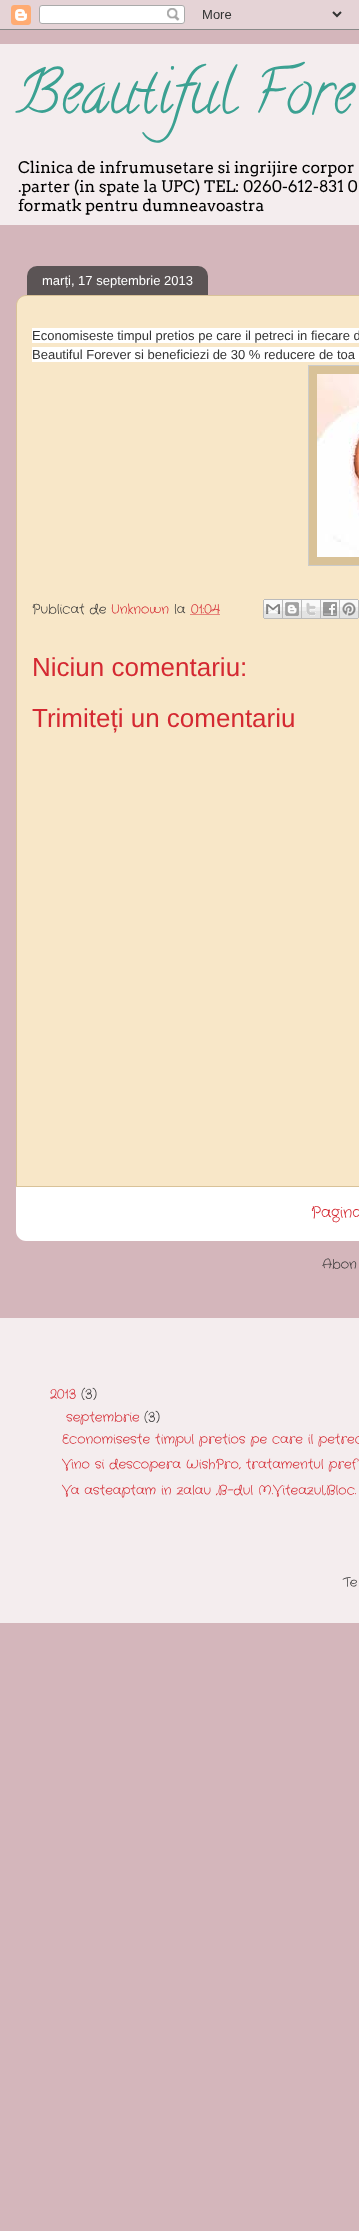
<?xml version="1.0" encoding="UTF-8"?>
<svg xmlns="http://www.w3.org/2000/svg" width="359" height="2231">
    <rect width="100%" height="100%" fill="#D4B6BB"/>
    <image x="0" y="0" width="359" height="30" href="img_01.png"/>
    <rect x="0" y="44" width="359" height="181" fill="#F4EDEE"/>
    <text x="16" y="111" font-family="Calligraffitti" font-size="60" fill="#3BA192">Beautiful Fore</text>
    <text font-family="Arvo" font-size="16" fill="#000000">
        <tspan x="18" y="173">Clinica de infrumusetare si ingrijire corpor</tspan>
        <tspan x="18" y="192">.parter (in spate la UPC) TEL: 0260-612-831 0</tspan>
        <tspan x="18" y="211">formatk pentru dumneavoastra</tspan>
    </text>
    <path d="M 26 295.5 H 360 C 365 295.5 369.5 300 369.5 305 V 1186.5 H 16.5 V 305 C 16.5 300 21 295.5 26 295.5 Z" fill="#F8E7C8" stroke="#D9C298"/>
    <image x="27" y="266" width="181" height="29" href="img_02.png"/>
    <text x="42" y="285" font-family="Liberation Sans" font-size="13" fill="#FFFFFF">marți, 17 septembrie 2013</text>
    <rect x="32" y="328" width="327" height="15" fill="#FFFFFF"/>
    <text x="32" y="340" font-family="Liberation Sans" font-size="13" fill="#333333">Economiseste timpul pretios pe care il petreci in fiecare d</text>
    <rect x="32" y="347" width="327" height="15" fill="#FFFFFF"/>
    <text x="32" y="359" font-family="Liberation Sans" font-size="13" fill="#333333">Beautiful Forever si beneficiezi de 30 % reducere de toa</text>
    <rect x="308.5" y="365.5" width="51" height="200" fill="#D9C298" stroke="#CBCBCB"/>
    <image x="317" y="374" width="42" height="183" href="img_03.png"/>
    <text x="32" y="613" font-family="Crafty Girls" font-size="13" fill="#333333">Publicat de</text>
    <text x="111" y="613" font-family="Crafty Girls" font-size="13" fill="#D42932">Unknown</text>
    <text x="174" y="613" font-family="Crafty Girls" font-size="13" fill="#333333">la</text>
    <text x="191" y="613" font-family="Crafty Girls" font-size="13" fill="#D42932">01:04</text>
    <path d="M 190.5 614.5 H 219.5" fill="none" stroke="#D42932" stroke-dasharray="1 1"/>
    <image x="263" y="599" width="20" height="20" href="img_04.png"/>
    <image x="283" y="599" width="19" height="20" href="img_05.png"/>
    <image x="302" y="599" width="19" height="20" href="img_06.png"/>
    <image x="321" y="599" width="19" height="20" href="img_07.png"/>
    <image x="340" y="599" width="19" height="20" href="img_08.png"/>
    <text font-family="Liberation Sans" font-size="26" fill="#D42932">
        <tspan x="32" y="676">Niciun comentariu:</tspan>
        <tspan x="32" y="727">Trimiteți un comentariu</tspan>
    </text>
    <path d="M 16 1187 H 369 V 1231 C 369 1236.5 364.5 1241 359 1241 H 26 C 20.5 1241 16 1236.5 16 1231 Z" fill="#FFFFFF"/>
    <text x="311" y="1217" font-family="Crafty Girls" font-size="15.5" fill="#D42932">Pagina</text>
    <text x="322" y="1268" font-family="Crafty Girls" font-size="13" fill="#333333">Abon</text>
    <rect x="0" y="1318" width="359" height="305" fill="#F4EDEE"/>
    <text x="50" y="1398" font-family="Crafty Girls" font-size="13" fill="#D42932">2013</text>
    <text x="81" y="1398" font-family="Crafty Girls" font-size="13" fill="#333333">(3)</text>
    <text x="66" y="1421" font-family="Crafty Girls" font-size="13" fill="#D42932">septembrie</text>
    <text x="144" y="1421" font-family="Crafty Girls" font-size="13" fill="#333333">(3)</text>
    <text font-family="Crafty Girls" font-size="13" fill="#D42932">
        <tspan x="62" y="1443">Economiseste timpul pretios pe care il petrec</tspan>
        <tspan x="62" y="1468">Vino si descopera WishPro, tratamentul pref</tspan>
    </text>
    <text x="62" y="1494" font-family="Crafty Girls" font-size="13" fill="#D42932">Va asteaptam in zalau ,B-dul M.Viteazul,Bloc.</text>
    <text x="343" y="1586" font-family="Crafty Girls" font-size="13" fill="#333333">Te</text>
</svg>
